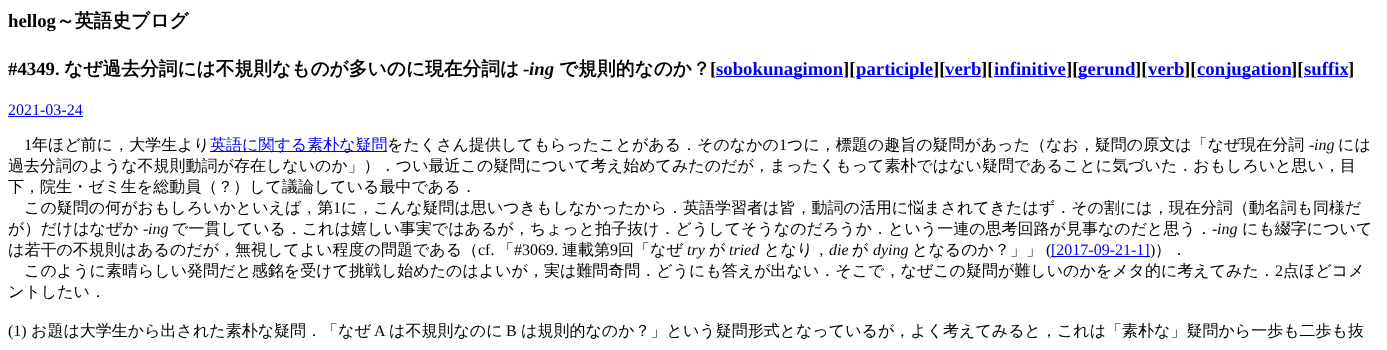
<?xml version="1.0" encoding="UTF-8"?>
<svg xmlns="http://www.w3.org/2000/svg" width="1387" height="350">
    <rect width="100%" height="100%" fill="#FFFFFF"/>
    <text x="8" y="27" font-family="Liberation Serif" font-size="18.75" font-weight="700" fill="#000000">hellog</text>
    <text x="56" y="27" font-family="WenQuanYi Zen Hei" font-size="18.75" font-weight="700" fill="#000000">～英語史ブログ</text>
    <text x="8" y="75" font-family="Liberation Serif" font-size="18.75" font-weight="700" fill="#000000">#4349.</text>
    <text x="64" y="75" font-family="WenQuanYi Zen Hei" font-size="18.75" font-weight="700" fill="#000000">なぜ過去分詞には不規則なものが多いのに現在分詞は</text>
    <text x="523" y="75" font-family="Liberation Serif" font-size="18.75" font-weight="700" fill="#000000">-</text>
    <text x="529" y="75" font-family="Liberation Serif" font-size="18.75" font-weight="700" font-style="italic" fill="#000000">ing</text>
    <text x="559" y="75" font-family="WenQuanYi Zen Hei" font-size="18.75" font-weight="700" fill="#000000">で規則的なのか？</text>
    <text x="710" y="75" font-family="Liberation Serif" font-size="18.75" font-weight="700" fill="#000000">[</text>
    <rect x="716" y="76" width="127" height="1" fill="#0000EE"/>
    <text x="716" y="75" font-family="Liberation Serif" font-size="18.75" font-weight="700" fill="#0000EE">sobokunagimon</text>
    <text x="843" y="75" font-family="Liberation Serif" font-size="18.75" font-weight="700" fill="#000000">][</text>
    <rect x="856" y="76" width="77" height="1" fill="#0000EE"/>
    <text x="856" y="75" font-family="Liberation Serif" font-size="18.75" font-weight="700" fill="#0000EE">participle</text>
    <text x="933" y="75" font-family="Liberation Serif" font-size="18.75" font-weight="700" fill="#000000">][</text>
    <text x="945" y="75" font-family="Liberation Serif" font-size="18.75" font-weight="700" fill="#0000EE">verb</text>
    <rect x="945" y="76" width="36" height="1" fill="#0000EE"/>
    <text x="981" y="75" font-family="Liberation Serif" font-size="18.75" font-weight="700" fill="#000000">][</text>
    <text x="994" y="75" font-family="Liberation Serif" font-size="18.75" font-weight="700" fill="#0000EE">infinitive</text>
    <rect x="994" y="76" width="72" height="1" fill="#0000EE"/>
    <text x="1066" y="75" font-family="Liberation Serif" font-size="18.75" font-weight="700" fill="#000000">][</text>
    <rect x="1078" y="76" width="57" height="1" fill="#0000EE"/>
    <text x="1078" y="75" font-family="Liberation Serif" font-size="18.75" font-weight="700" fill="#0000EE">gerund</text>
    <text x="1135" y="75" font-family="Liberation Serif" font-size="18.75" font-weight="700" fill="#000000">][</text>
    <text x="1148" y="75" font-family="Liberation Serif" font-size="18.75" font-weight="700" fill="#0000EE">verb</text>
    <rect x="1148" y="76" width="36" height="1" fill="#0000EE"/>
    <text x="1184" y="75" font-family="Liberation Serif" font-size="18.75" font-weight="700" fill="#000000">][</text>
    <rect x="1197" y="76" width="94" height="1" fill="#0000EE"/>
    <text x="1197" y="75" font-family="Liberation Serif" font-size="18.75" font-weight="700" fill="#0000EE">conjugation</text>
    <text x="1291" y="75" font-family="Liberation Serif" font-size="18.75" font-weight="700" fill="#000000">][</text>
    <text x="1304" y="75" font-family="Liberation Serif" font-size="18.75" font-weight="700" fill="#0000EE">suffix</text>
    <rect x="1304" y="76" width="44" height="1" fill="#0000EE"/>
    <text x="1348" y="75" font-family="Liberation Serif" font-size="18.75" font-weight="700" fill="#000000">]</text>
    <text x="8" y="115" font-family="Liberation Serif" font-size="16" fill="#0000EE">2021-03-24</text>
    <rect x="8" y="116" width="75" height="1" fill="#0000EE"/>
    <text x="24" y="150" font-family="Liberation Serif" font-size="16" fill="#000000">1</text>
    <text x="32" y="150" font-family="WenQuanYi Zen Hei" font-size="16" font-weight="500" fill="#000000">年ほど前に，大学生より</text>
    <rect x="210" y="151" width="177" height="1" fill="#0000EE"/>
    <text x="210" y="150" font-family="WenQuanYi Zen Hei" font-size="16" font-weight="500" fill="#0000EE">英語に関する素朴な疑問</text>
    <text x="387" y="150" font-family="WenQuanYi Zen Hei" font-size="16" font-weight="500" fill="#000000">をたくさん提供してもらったことがある．そのなかの</text>
    <text x="779" y="150" font-family="Liberation Serif" font-size="16" fill="#000000">1</text>
    <text x="787" y="150" font-family="WenQuanYi Zen Hei" font-size="16" font-weight="500" fill="#000000">つに，標題の趣旨の疑問があった（なお，疑問の原文は「なぜ現在分詞</text>
    <text x="1309" y="150" font-family="Liberation Serif" font-size="16" fill="#000000">-</text>
    <text x="1314" y="150" font-family="Liberation Serif" font-size="16" font-style="italic" fill="#000000">ing</text>
    <text x="1338" y="150" font-family="WenQuanYi Zen Hei" font-size="16" font-weight="500" fill="#000000">には</text>
    <text font-family="WenQuanYi Zen Hei" font-size="16" font-weight="500" fill="#000000">
        <tspan x="8" y="171">過去分詞のような不規則動詞が存在しないのか」）．つい最近この疑問について考え始めてみたのだが，まったくもって素朴ではない疑問であることに気づいた．おもしろいと思い，目</tspan>
        <tspan x="8" y="192">下，院生・ゼミ生を総動員（？）して議論している最中である．</tspan>
    </text>
    <text x="24" y="213" font-family="WenQuanYi Zen Hei" font-size="16" font-weight="500" fill="#000000">この疑問の何がおもしろいかといえば，第</text>
    <text x="333" y="213" font-family="Liberation Serif" font-size="16" fill="#000000">1</text>
    <text x="341" y="213" font-family="WenQuanYi Zen Hei" font-size="16" font-weight="500" fill="#000000">に，こんな疑問は思いつきもしなかったから．英語学習者は皆，動詞の活用に悩まされてきたはず．その割には，現在分詞（動名詞も同様だ</text>
    <text x="8" y="234" font-family="WenQuanYi Zen Hei" font-size="16" font-weight="500" fill="#000000">が）だけはなぜか</text>
    <text x="143" y="234" font-family="Liberation Serif" font-size="16" fill="#000000">-</text>
    <text x="148" y="234" font-family="Liberation Serif" font-size="16" font-style="italic" fill="#000000">ing</text>
    <text x="172" y="234" font-family="WenQuanYi Zen Hei" font-size="16" font-weight="500" fill="#000000">で一貫している．これは嬉しい事実ではあるが，ちょっと拍子抜け．どうしてそうなのだろうか．という一連の思考回路が見事なのだと思う．</text>
    <text x="1212" y="234" font-family="Liberation Serif" font-size="16" fill="#000000">-</text>
    <text x="1217" y="234" font-family="Liberation Serif" font-size="16" font-style="italic" fill="#000000">ing</text>
    <text x="1242" y="234" font-family="WenQuanYi Zen Hei" font-size="16" font-weight="500" fill="#000000">にも綴字について</text>
    <text x="8" y="255" font-family="WenQuanYi Zen Hei" font-size="16" font-weight="500" fill="#000000">は若干の不規則はあるのだが，無視してよい程度の問題である（</text>
    <text x="478" y="255" font-family="Liberation Serif" font-size="16" fill="#000000">cf.</text>
    <text x="498" y="255" font-family="WenQuanYi Zen Hei" font-size="16" font-weight="500" fill="#000000">「</text>
    <text x="514" y="255" font-family="Liberation Serif" font-size="16" fill="#000000">#3069.</text>
    <text x="562" y="255" font-family="WenQuanYi Zen Hei" font-size="16" font-weight="500" fill="#000000">連載第</text>
    <text x="610" y="255" font-family="Liberation Serif" font-size="16" fill="#000000">9</text>
    <text x="618" y="255" font-family="WenQuanYi Zen Hei" font-size="16" font-weight="500" fill="#000000">回「なぜ</text>
    <text x="687" y="255" font-family="Liberation Serif" font-size="16" font-style="italic" fill="#000000">try</text>
    <text x="709" y="255" font-family="WenQuanYi Zen Hei" font-size="16" font-weight="500" fill="#000000">が</text>
    <text x="729" y="255" font-family="Liberation Serif" font-size="16" font-style="italic" fill="#000000">tried</text>
    <text x="764" y="255" font-family="WenQuanYi Zen Hei" font-size="16" font-weight="500" fill="#000000">となり，</text>
    <text x="829" y="255" font-family="Liberation Serif" font-size="16" font-style="italic" fill="#000000">die</text>
    <text x="852" y="255" font-family="WenQuanYi Zen Hei" font-size="16" font-weight="500" fill="#000000">が</text>
    <text x="873" y="255" font-family="Liberation Serif" font-size="16" font-style="italic" fill="#000000">dying</text>
    <text x="912" y="255" font-family="WenQuanYi Zen Hei" font-size="16" font-weight="500" fill="#000000">となるのか？」」</text>
    <text x="1046" y="255" font-family="Liberation Serif" font-size="16" fill="#000000">(</text>
    <rect x="1051" y="256" width="99" height="1" fill="#0000EE"/>
    <text x="1051" y="255" font-family="Liberation Serif" font-size="16" fill="#0000EE">[2017-09-21-1]</text>
    <text x="1150" y="255" font-family="Liberation Serif" font-size="16" fill="#000000">)</text>
    <text x="1155" y="255" font-family="WenQuanYi Zen Hei" font-size="16" font-weight="500" fill="#000000">）．</text>
    <text x="24" y="276" font-family="WenQuanYi Zen Hei" font-size="16" font-weight="500" fill="#000000">このように素晴らしい発問だと感銘を受けて挑戦し始めたのはよいが，実は難問奇問．どうにも答えが出ない．そこで，なぜこの疑問が難しいのかをメタ的に考えてみた．</text>
    <text x="1275" y="276" font-family="Liberation Serif" font-size="16" fill="#000000">2</text>
    <text x="1283" y="276" font-family="WenQuanYi Zen Hei" font-size="16" font-weight="500" fill="#000000">点ほどコメ</text>
    <text x="8" y="297" font-family="WenQuanYi Zen Hei" font-size="16" font-weight="500" fill="#000000">ントしたい．</text>
    <text x="8" y="336" font-family="Liberation Serif" font-size="16" fill="#000000">(1)</text>
    <text x="31" y="336" font-family="WenQuanYi Zen Hei" font-size="16" font-weight="500" fill="#000000">お題は大学生から出された素朴な疑問．「なぜ</text>
    <text x="374" y="336" font-family="Liberation Serif" font-size="16" fill="#000000">A</text>
    <text x="389" y="336" font-family="WenQuanYi Zen Hei" font-size="16" font-weight="500" fill="#000000">は不規則なのに</text>
    <text x="506" y="336" font-family="Liberation Serif" font-size="16" fill="#000000">B</text>
    <text x="521" y="336" font-family="WenQuanYi Zen Hei" font-size="16" font-weight="500" fill="#000000">は規則的なのか？」という疑問形式となっているが，よく考えてみると，これは「素朴な」疑問から一歩も二歩も抜</text>
</svg>
